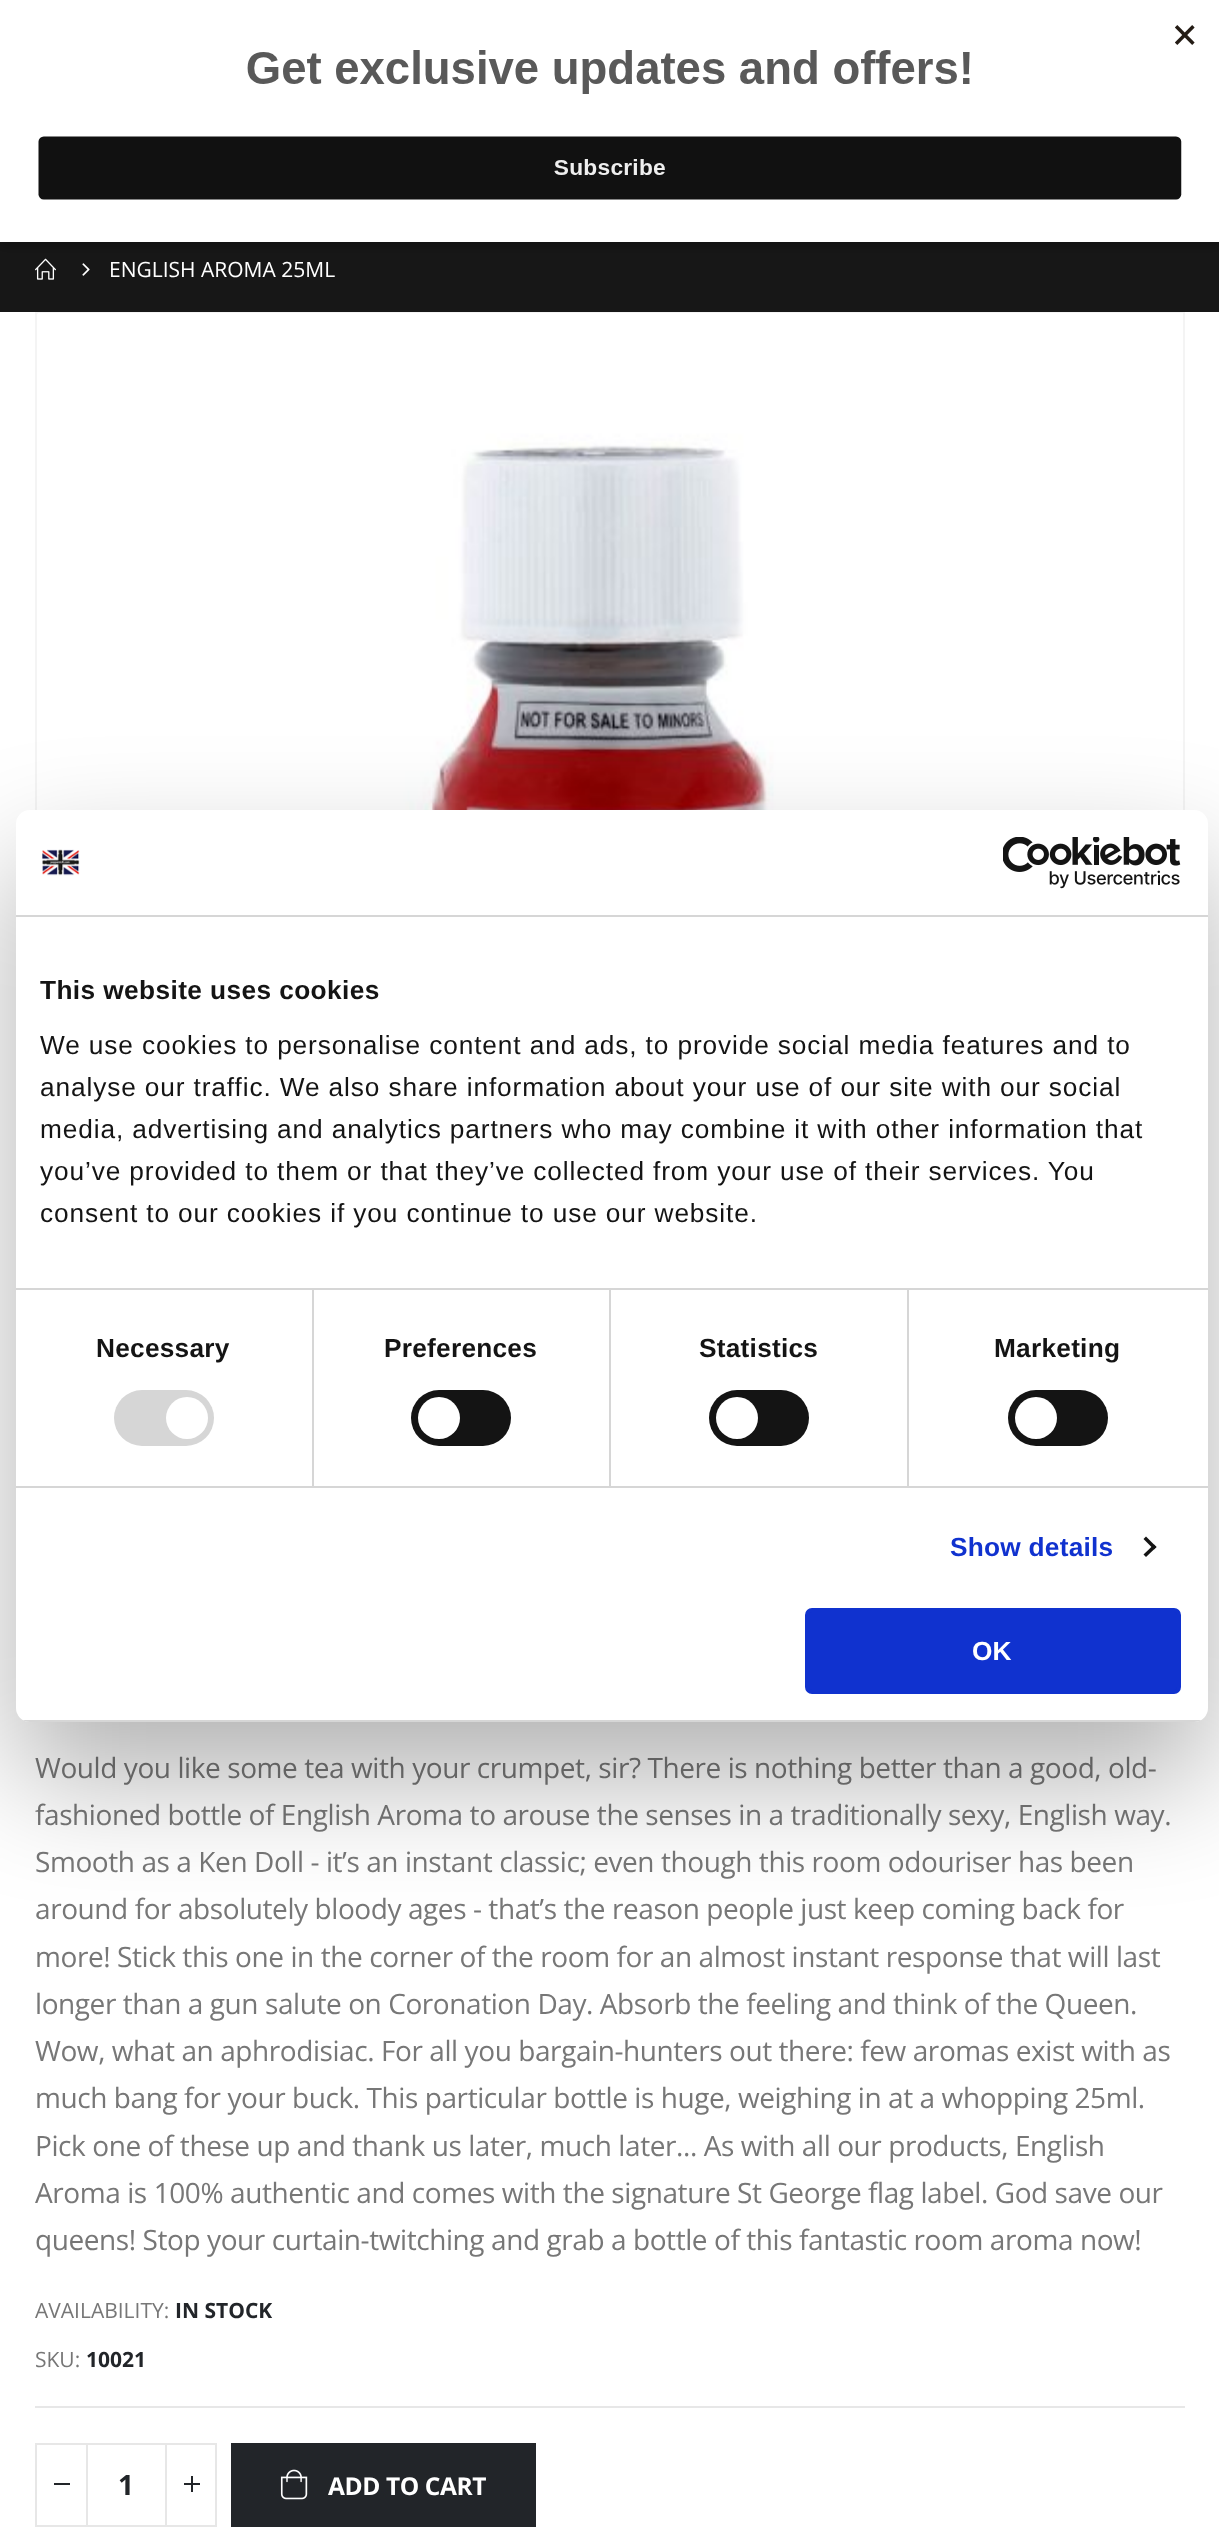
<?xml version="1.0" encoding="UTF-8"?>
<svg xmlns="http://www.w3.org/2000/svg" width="1219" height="2530">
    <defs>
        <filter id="blur1" x="-50%" y="-200%" width="200%" height="500%"><feGaussianBlur stdDeviation="5"/></filter>
        <filter id="blur2" x="-50%" y="-200%" width="200%" height="500%"><feGaussianBlur stdDeviation="59.5"/></filter>
        <clipPath id="clip1"><rect x="16" y="810" width="1192" height="912" rx="14"/></clipPath>
    </defs>
    <rect width="100%" height="100%" fill="#FFFFFF"/>
    <rect x="0" y="242" width="1219" height="70" fill="#171717"/>
    <image x="35" y="258" width="21" height="22" href="img_02.png"/>
    <rect x="0" y="5" width="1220" height="242" fill="#000000" fill-opacity="0.2" filter="url(#blur1)"/>
    <rect x="0" y="0" width="1219" height="242" fill="#FFFFFF"/>
    <image x="38" y="25" width="1157" height="175" href="img_01.png"/>
    <image x="82" y="263" width="8" height="13" href="img_03.png"/>
    <text x="109" y="277" font-family="Open Sans" font-size="21" fill="#FFFFFF">ENGLISH AROMA 25ML</text>
    <rect x="36" y="313" width="1148" height="1147" fill="none" stroke="#F4F4F4" stroke-width="2"/>
    <image x="37" y="313" width="1146" height="497" href="img_04.png"/>
    <text font-family="Open Sans" font-size="28" letter-spacing="-0.42" fill="#777777">
        <tspan x="35" y="1778">Would you like some tea with your crumpet, sir? There is nothing better than a good, old-</tspan>
        <tspan x="35" y="1825">fashioned bottle of English Aroma to arouse the senses in a traditionally sexy, English way.</tspan>
        <tspan x="35" y="1872">Smooth as a Ken Doll - it’s an instant classic; even though this room odouriser has been</tspan>
        <tspan x="35" y="1919">around for absolutely bloody ages - that’s the reason people just keep coming back for</tspan>
        <tspan x="35" y="1967">more! Stick this one in the corner of the room for an almost instant response that will last</tspan>
        <tspan x="35" y="2014">longer than a gun salute on Coronation Day. Absorb the feeling and think of the Queen.</tspan>
        <tspan x="35" y="2061">Wow, what an aphrodisiac.</tspan>
    </text>
    <text x="381" y="2061" font-family="Open Sans" font-size="28" letter-spacing="-0.42" fill="#777777">For all you bargain-hunters out there: few aromas exist with as</text>
    <text font-family="Open Sans" font-size="28" letter-spacing="-0.42" fill="#777777">
        <tspan x="35" y="2108">much bang for your buck. This particular bottle is huge, weighing in at a whopping 25ml.</tspan>
        <tspan x="35" y="2156">Pick one of these up and thank us later, much later... As with all our products, English</tspan>
        <tspan x="35" y="2203">Aroma is 100% authentic and comes with the signature St George flag label. God save our</tspan>
        <tspan x="35" y="2250">queens! Stop your curtain-twitching and grab a bottle of this fantastic room aroma now!</tspan>
    </text>
    <text x="35" y="2318" font-family="Open Sans" font-size="21" fill="#777777">AVAILABILITY:</text>
    <text x="175" y="2318" font-family="Open Sans" font-size="21" font-weight="700" fill="#222529">IN STOCK</text>
    <text x="35" y="2367" font-family="Open Sans" font-size="21" fill="#777777">SKU:</text>
    <text x="86" y="2367" font-family="Open Sans" font-size="21" font-weight="700" fill="#222529">10021</text>
    <rect x="35" y="2406" width="1150" height="2" fill="#E7E7E7"/>
    <rect x="36" y="2444" width="51" height="82" fill="none" stroke="#E7E7E7" stroke-width="2"/>
    <rect x="54" y="2483" width="16" height="2" fill="#222529"/>
    <rect x="166" y="2444" width="50" height="82" fill="none" stroke="#E7E7E7" stroke-width="2"/>
    <rect x="184" y="2483" width="16" height="2" fill="#222529"/>
    <rect x="191" y="2476" width="2" height="16" fill="#222529"/>
    <rect x="88" y="2443" width="77" height="2" fill="#E7E7E7"/>
    <rect x="88" y="2525" width="77" height="2" fill="#E7E7E7"/>
    <text x="118" y="2495" font-family="Open Sans" font-size="28" font-weight="700" fill="#222529">1</text>
    <rect x="231" y="2443" width="305" height="84" fill="#222529"/>
    <image x="280" y="2469" width="28" height="31" href="img_05.png"/>
    <text x="328" y="2495" font-family="Open Sans" font-size="24.5" font-weight="700" letter-spacing="-0.4" fill="#FFFFFF">ADD TO CART</text>
    <rect x="16" y="866" width="1192" height="912" rx="14" fill="#000000" fill-opacity="0.3" filter="url(#blur2)"/>
    <rect x="16" y="810" width="1192" height="912" rx="14" fill="#FFFFFF"/>
    <rect x="16" y="915" width="1192" height="2" fill="#D6D6D6"/>
    <image x="42" y="849" width="38" height="27" href="img_06.png"/>
    <image x="1003" y="837" width="178" height="52" href="img_07.png"/>
    <rect x="16" y="1288" width="1192" height="2" fill="#D6D6D6"/>
    <text x="40" y="999" font-family="Liberation Sans" font-size="26.25" font-weight="700" letter-spacing="0.4" fill="#141414">This website uses cookies</text>
    <text font-family="Liberation Sans" font-size="26.25" letter-spacing="0.88" fill="#141414">
        <tspan x="40" y="1054">We use cookies to personalise content and ads, to provide social media features and to</tspan>
        <tspan x="40" y="1096">analyse our traffic. We also share information about your use of our site with our social</tspan>
        <tspan x="40" y="1138">media, advertising and analytics partners who may combine it with other information that</tspan>
        <tspan x="40" y="1180">you’ve provided to them or that they’ve collected from your use of their services. You</tspan>
        <tspan x="40" y="1222">consent to our cookies if you continue to use our website.</tspan>
    </text>
    <rect x="16" y="1486" width="1192" height="2" fill="#D6D6D6"/>
    <rect x="312" y="1290" width="2" height="196" fill="#D6D6D6"/>
    <text x="96" y="1357" font-family="Liberation Sans" font-size="26.25" font-weight="700" letter-spacing="0.25" fill="#141414">Necessary</text>
    <rect x="114" y="1390" width="100" height="56" rx="28" fill="#D6D6D6"/>
    <circle cx="187" cy="1418" r="21" fill="#FFFFFF"/>
    <rect x="609" y="1290" width="2" height="196" fill="#D6D6D6"/>
    <text x="384" y="1357" font-family="Liberation Sans" font-size="26.25" font-weight="700" letter-spacing="0.25" fill="#141414">Preferences</text>
    <rect x="411" y="1390" width="100" height="56" rx="28" fill="#141414"/>
    <circle cx="439" cy="1418" r="21" fill="#FFFFFF"/>
    <rect x="907" y="1290" width="2" height="196" fill="#D6D6D6"/>
    <text x="699" y="1357" font-family="Liberation Sans" font-size="26.25" font-weight="700" letter-spacing="0.25" fill="#141414">Statistics</text>
    <rect x="709" y="1390" width="100" height="56" rx="28" fill="#141414"/>
    <circle cx="737" cy="1418" r="21" fill="#FFFFFF"/>
    <text x="994" y="1357" font-family="Liberation Sans" font-size="26.25" font-weight="700" letter-spacing="0.25" fill="#141414">Marketing</text>
    <rect x="1008" y="1390" width="100" height="56" rx="28" fill="#141414"/>
    <circle cx="1036" cy="1418" r="21" fill="#FFFFFF"/>
    <text x="950" y="1556" font-family="Liberation Sans" font-size="26.25" font-weight="700" letter-spacing="0.25" fill="#1032CF">Show details</text>
    <path d="M 1146 1536.5 L 1156.5 1547 L 1154 1549.5 L 1143.5 1539 Z" fill="#141414"/>
    <path d="M 1154 1544.5 L 1156.5 1547 L 1146 1557 L 1143.5 1554.5 Z" fill="#141414"/>
    <g clip-path="url(#clip1)">
        <rect x="16" y="1720" width="1192" height="2" fill="#D6D6D6"/>
    </g>
    <rect x="807" y="1610" width="372" height="82" rx="5" fill="#1032CF" stroke="#1032CF" stroke-width="4"/>
    <text x="972" y="1660" font-family="Liberation Sans" font-size="26.25" font-weight="700" fill="#FFFFFF">OK</text>
</svg>
